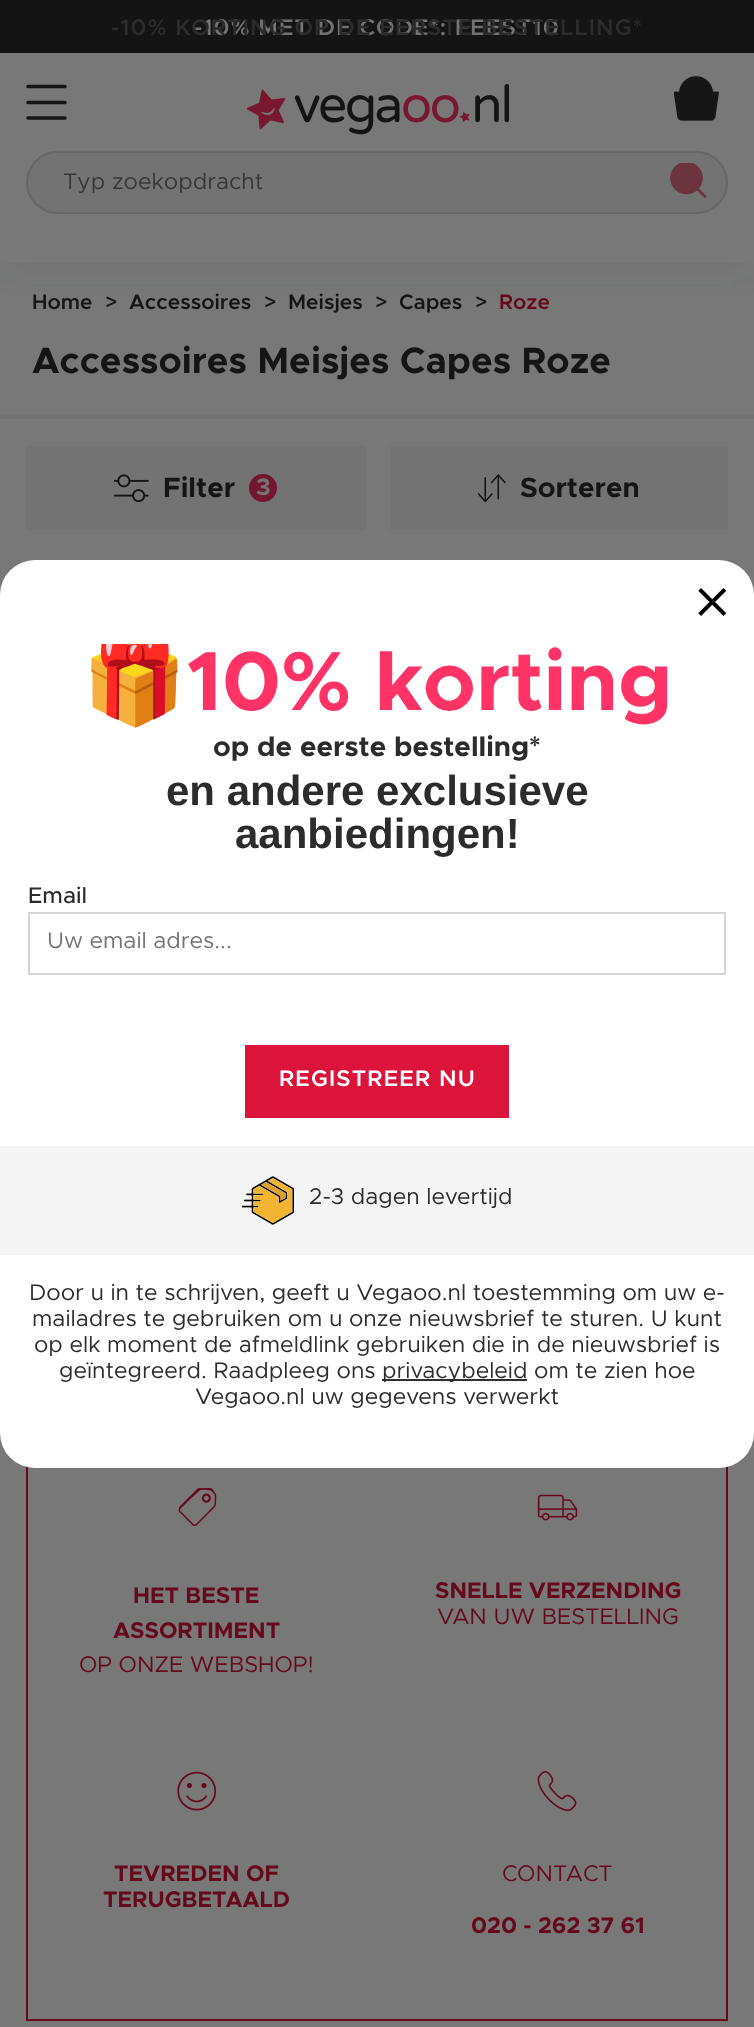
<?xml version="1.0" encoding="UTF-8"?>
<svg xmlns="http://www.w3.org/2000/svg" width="754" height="2027">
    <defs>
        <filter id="blur1" x="-50%" y="-200%" width="200%" height="500%"><feGaussianBlur stdDeviation="21"/></filter>
        <clipPath id="clip1"><rect x="670" y="163" width="41" height="39"/></clipPath>
        <clipPath id="clip2"><rect x="0" y="644" width="754" height="796"/></clipPath>
    </defs>
    <rect width="100%" height="100%" fill="#787878"/>
    <rect x="0" y="14" width="754" height="247" fill="#464A4E" fill-opacity="0.2" filter="url(#blur1)"/>
    <rect x="0" y="53" width="754" height="210" fill="#787878"/>
    <rect x="0" y="0" width="754" height="53" fill="#141414"/>
    <text x="194" y="35" font-family="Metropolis" font-size="22.75" font-weight="600" letter-spacing="1.15" fill="#737373">-10% MET DE CODE*: FEEST10</text>
    <text x="111" y="35" font-family="Metropolis" font-size="22.75" font-weight="600" letter-spacing="1.15" fill="#2C2C2C">-10% KORTING OP DE EERSTE BESTELLING*</text>
    <path d="M 28 86.5 H 65 M 28 102.5 H 65 M 28 118 H 65" fill="none" stroke="#161616" stroke-width="3.4" stroke-linecap="round" stroke-linejoin="round"/>
    <image x="247" y="84" width="262" height="51" href="img_01.png"/>
    <image x="674" y="76" width="45" height="45" href="img_02.png"/>
    <rect x="27" y="152" width="700" height="61" rx="30.5" fill="#737373" stroke="#676767" stroke-width="2"/>
    <text x="63" y="189" font-family="Metropolis" font-size="22.75" fill="#373737">Typ zoekopdracht</text>
    <circle cx="686.5" cy="178" r="15" fill="#6C343F"/>
    <g clip-path="url(#clip1)">
        <circle cx="686.5" cy="178" r="15" fill="none" stroke="#6C343F" stroke-width="2.7"/>
    </g>
    <path d="M 705 196.5 L 697 188.5" fill="none" stroke="#6C343F" stroke-width="2.7" stroke-linecap="round" stroke-linejoin="round"/>
    <text x="32" y="309" font-family="Metropolis" font-size="21" font-weight="600" fill="#151515">Home</text>
    <text x="105" y="309" font-family="Metropolis" font-size="21" font-weight="600" fill="#151515">&gt;</text>
    <text x="129" y="309" font-family="Metropolis" font-size="21" font-weight="600" fill="#151515">Accessoires</text>
    <text x="264" y="309" font-family="Metropolis" font-size="21" font-weight="600" fill="#151515">&gt;</text>
    <text x="288" y="309" font-family="Metropolis" font-size="21" font-weight="600" fill="#151515">Meisjes</text>
    <text x="375" y="309" font-family="Metropolis" font-size="21" font-weight="600" fill="#151515">&gt;</text>
    <text x="399" y="309" font-family="Metropolis" font-size="21" font-weight="600" fill="#151515">Capes</text>
    <text x="475" y="309" font-family="Metropolis" font-size="21" font-weight="600" fill="#151515">&gt;</text>
    <text x="499" y="309" font-family="Metropolis" font-size="21" font-weight="600" fill="#67091C">Roze</text>
    <text x="32" y="373" font-family="Metropolis" font-size="36.75" font-weight="700" fill="#151515">Accessoires Meisjes Capes Roze</text>
    <rect x="0" y="415" width="754" height="4" fill="#737373"/>
    <rect x="26" y="446" width="340" height="84" fill="#737373"/>
    <image x="114" y="474" width="35" height="29" href="img_03.png"/>
    <text x="163" y="497" font-family="Metropolis" font-size="28" font-weight="700" fill="#151515">Filter</text>
    <circle cx="263" cy="488" r="14" fill="#73172E"/>
    <text x="256" y="495" font-family="Metropolis" font-size="24" font-weight="700" fill="#737373">3</text>
    <rect x="390" y="446" width="338" height="84" fill="#737373"/>
    <image x="478" y="474" width="28" height="28" href="img_04.png"/>
    <text x="520" y="497" font-family="Metropolis" font-size="28" font-weight="700" fill="#151515">Sorteren</text>
    <rect x="27" y="1452" width="700" height="568" fill="none" stroke="#67091C" stroke-width="2"/>
    <image x="178" y="1488" width="39" height="39" href="img_05.png"/>
    <text x="133" y="1603" font-family="Metropolis" font-size="22.75" font-weight="700" fill="#67091C">HET BESTE</text>
    <text x="113" y="1638" font-family="Metropolis" font-size="22.75" font-weight="700" fill="#67091C">ASSORTIMENT</text>
    <text x="79" y="1672" font-family="Metropolis" font-size="22.75" fill="#67091C">OP ONZE WEBSHOP!</text>
    <image x="537" y="1494" width="41" height="27" href="img_06.png"/>
    <text x="435" y="1598" font-family="Metropolis" font-size="22.75" font-weight="700" fill="#67091C">SNELLE VERZENDING</text>
    <text x="437" y="1624" font-family="Metropolis" font-size="22.75" fill="#67091C">VAN UW BESTELLING</text>
    <image x="177" y="1771" width="40" height="40" href="img_07.png"/>
    <text x="114" y="1881" font-family="Metropolis" font-size="22.75" font-weight="700" fill="#67091C">TEVREDEN OF</text>
    <text x="103" y="1907" font-family="Metropolis" font-size="22.75" font-weight="700" fill="#67091C">TERUGBETAALD</text>
    <image x="537" y="1771" width="40" height="40" href="img_08.png"/>
    <text x="502" y="1881" font-family="Metropolis" font-size="22.75" fill="#67091C">CONTACT</text>
    <text x="471" y="1933" font-family="Metropolis" font-size="22.75" font-weight="700" fill="#67091C">020 - 262 37 61</text>
    <rect x="0" y="560" width="754" height="908" rx="35" fill="#FFFFFF"/>
    <image x="698" y="588" width="28" height="28" href="img_09.png"/>
    <g clip-path="url(#clip2)">
        <text x="82" y="710" font-family="Noto Color Emoji" font-size="84" font-weight="700" fill="#FF3366">🎁</text>
    </g>
    <text x="187" y="710" font-family="Metropolis" font-size="84" font-weight="700" fill="#FF3366">10% korting</text>
    <text x="213" y="756" font-family="Metropolis" font-size="28" font-weight="700" fill="#2C2C2C">op de eerste bestelling*</text>
    <text x="166" y="805" font-family="Liberation Sans" font-size="42" font-weight="700" fill="#2C2C2C">en andere exclusieve</text>
    <text x="235" y="848" font-family="Liberation Sans" font-size="42" font-weight="700" fill="#2C2C2C">aanbiedingen!</text>
    <text x="28" y="903" font-family="Metropolis" font-size="22.75" font-weight="500" fill="#2C2C2C">Email</text>
    <rect x="29" y="913" width="696" height="61" fill="none" stroke="#D5D5D5" stroke-width="2"/>
    <text x="47" y="948" font-family="Metropolis" font-size="22.75" fill="#737373">Uw email adres...</text>
    <rect x="245" y="1045" width="264" height="73" fill="#DC143C"/>
    <text x="279" y="1086" font-family="Metropolis" font-size="22.75" font-weight="600" letter-spacing="1.15" fill="#FFFFFF">REGISTREER NU</text>
    <rect x="0" y="1146" width="754" height="109" fill="#F5F5F5"/>
    <image x="242" y="1176" width="52" height="49" href="img_10.png"/>
    <text x="309" y="1204" font-family="Metropolis" font-size="22.75" fill="#2C2C2C">2-3 dagen levertijd</text>
    <text x="29" y="1300" font-family="Metropolis" font-size="22.75" fill="#2C2C2C">Door u in te schrijven, geeft u Vegaoo.nl toestemming om uw e-</text>
    <text x="32" y="1326" font-family="Metropolis" font-size="22.75" fill="#2C2C2C">mailadres te gebruiken om u onze nieuwsbrief te sturen. U kunt</text>
    <text x="34" y="1352" font-family="Metropolis" font-size="22.75" fill="#2C2C2C">op elk moment de afmeldlink gebruiken die in de nieuwsbrief is</text>
    <text x="59" y="1378" font-family="Metropolis" font-size="22.75" fill="#2C2C2C">geïntegreerd. Raadpleeg ons</text>
    <rect x="382" y="1379" width="145" height="2" fill="#2F2F2F"/>
    <text x="382" y="1378" font-family="Metropolis" font-size="22.75" fill="#2C2C2C">privacybeleid om te zien hoe</text>
    <text x="195" y="1404" font-family="Metropolis" font-size="22.75" fill="#2C2C2C">Vegaoo.nl uw gegevens verwerkt</text>
</svg>
